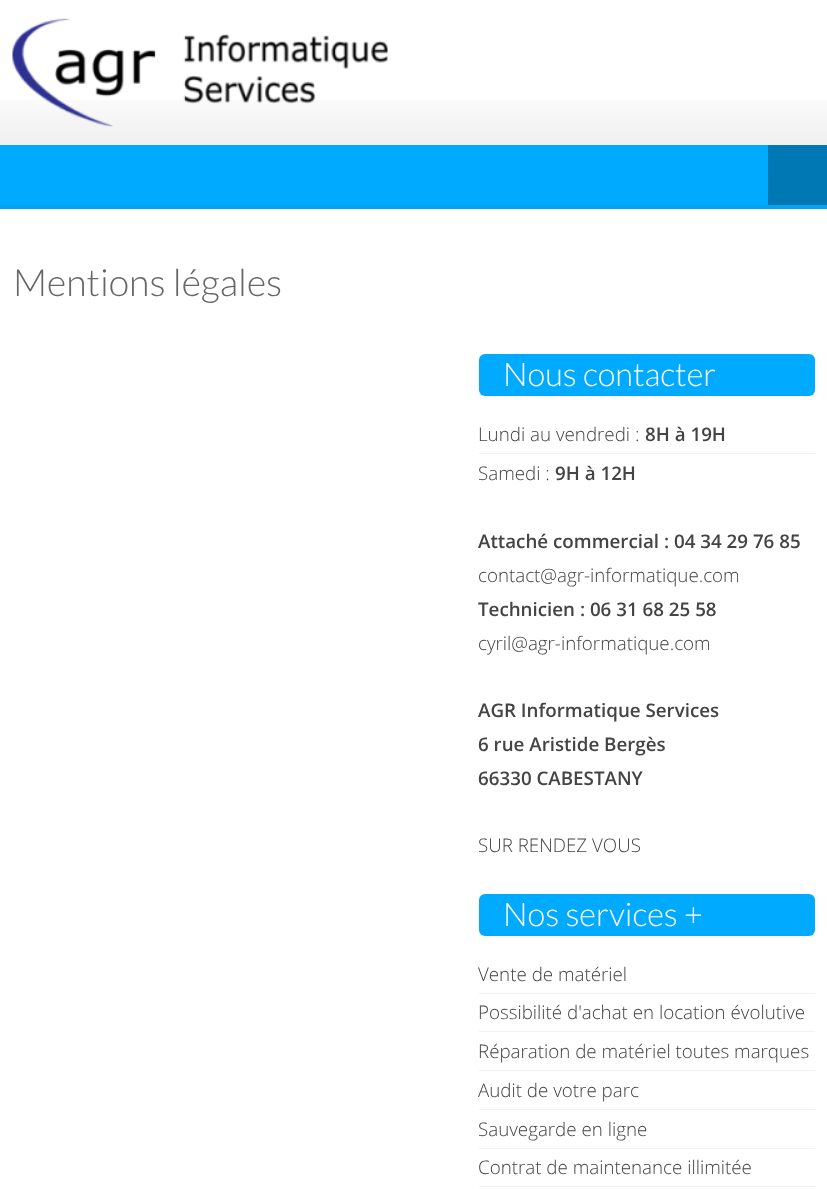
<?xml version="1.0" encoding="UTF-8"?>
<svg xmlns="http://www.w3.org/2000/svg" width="827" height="1189">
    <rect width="100%" height="100%" fill="#FFFFFF"/>
    <image x="0" y="100" width="827" height="45" href="img_01.png"/>
    <image x="12" y="18" width="376" height="109" href="img_02.png"/>
    <rect x="0" y="145" width="768" height="60" fill="#00ABFF"/>
    <rect x="0" y="205" width="827" height="4" fill="#04A3ED"/>
    <rect x="768" y="145" width="59" height="60" fill="#0078B3"/>
    <text x="13" y="296" font-family="Lato" font-size="37.5" font-weight="300" fill="#666666">Mentions légales</text>
    <rect x="479" y="354" width="336" height="42" rx="6" fill="#00ABFF"/>
    <text x="503" y="386" font-family="Lato" font-size="32.5" font-weight="300" fill="#FFFFFF">Nous contacter</text>
    <rect x="479" y="453" width="336" height="1" fill="#F2F2F2"/>
    <text x="478" y="441" font-family="Open Sans" font-size="18.75" font-weight="300" fill="#444444">Lundi au vendredi :</text>
    <text x="645" y="441" font-family="Open Sans" font-size="18.75" font-weight="600" fill="#444444">8H à 19H</text>
    <text x="478" y="480" font-family="Open Sans" font-size="18.75" font-weight="300" fill="#444444">Samedi :</text>
    <text x="555" y="480" font-family="Open Sans" font-size="18.75" font-weight="600" fill="#444444">9H à 12H</text>
    <text x="478" y="548" font-family="Open Sans" font-size="18.75" font-weight="600" fill="#444444">Attaché commercial : 04 34 29 76 85</text>
    <text x="478" y="582" font-family="Open Sans" font-size="18.75" font-weight="300" fill="#444444">contact@agr-informatique.com</text>
    <text x="478" y="616" font-family="Open Sans" font-size="18.75" font-weight="600" fill="#444444">Technicien : 06 31 68 25 58</text>
    <text x="478" y="650" font-family="Open Sans" font-size="18.75" font-weight="300" fill="#444444">cyril@agr-informatique.com</text>
    <text font-family="Open Sans" font-size="18.75" font-weight="600" fill="#444444">
        <tspan x="478" y="717">AGR Informatique Services</tspan>
        <tspan x="478" y="751">6 rue Aristide Bergès</tspan>
        <tspan x="478" y="785">66330 CABESTANY</tspan>
    </text>
    <text x="478" y="852" font-family="Open Sans" font-size="18.75" font-weight="300" fill="#444444">SUR RENDEZ VOUS</text>
    <rect x="479" y="894" width="336" height="42" rx="6" fill="#00ABFF"/>
    <text x="503" y="926" font-family="Lato" font-size="32.5" font-weight="300" fill="#FFFFFF">Nos services +</text>
    <rect x="479" y="993" width="336" height="1" fill="#F2F2F2"/>
    <text x="478" y="981" font-family="Open Sans" font-size="18.75" font-weight="300" fill="#444444">Vente de matériel</text>
    <rect x="479" y="1031" width="336" height="1" fill="#F2F2F2"/>
    <text x="478" y="1019" font-family="Open Sans" font-size="18.75" font-weight="300" fill="#444444">Possibilité d'achat en location évolutive</text>
    <rect x="479" y="1070" width="336" height="1" fill="#F2F2F2"/>
    <text x="478" y="1058" font-family="Open Sans" font-size="18.75" font-weight="300" fill="#444444">Réparation de matériel toutes marques</text>
    <rect x="479" y="1109" width="336" height="1" fill="#F2F2F2"/>
    <text x="478" y="1097" font-family="Open Sans" font-size="18.75" font-weight="300" fill="#444444">Audit de votre parc</text>
    <rect x="479" y="1148" width="336" height="1" fill="#F2F2F2"/>
    <text x="478" y="1136" font-family="Open Sans" font-size="18.75" font-weight="300" fill="#444444">Sauvegarde en ligne</text>
    <rect x="479" y="1186" width="336" height="1" fill="#F2F2F2"/>
    <text x="478" y="1174" font-family="Open Sans" font-size="18.75" font-weight="300" fill="#444444">Contrat de maintenance illimitée</text>
</svg>
